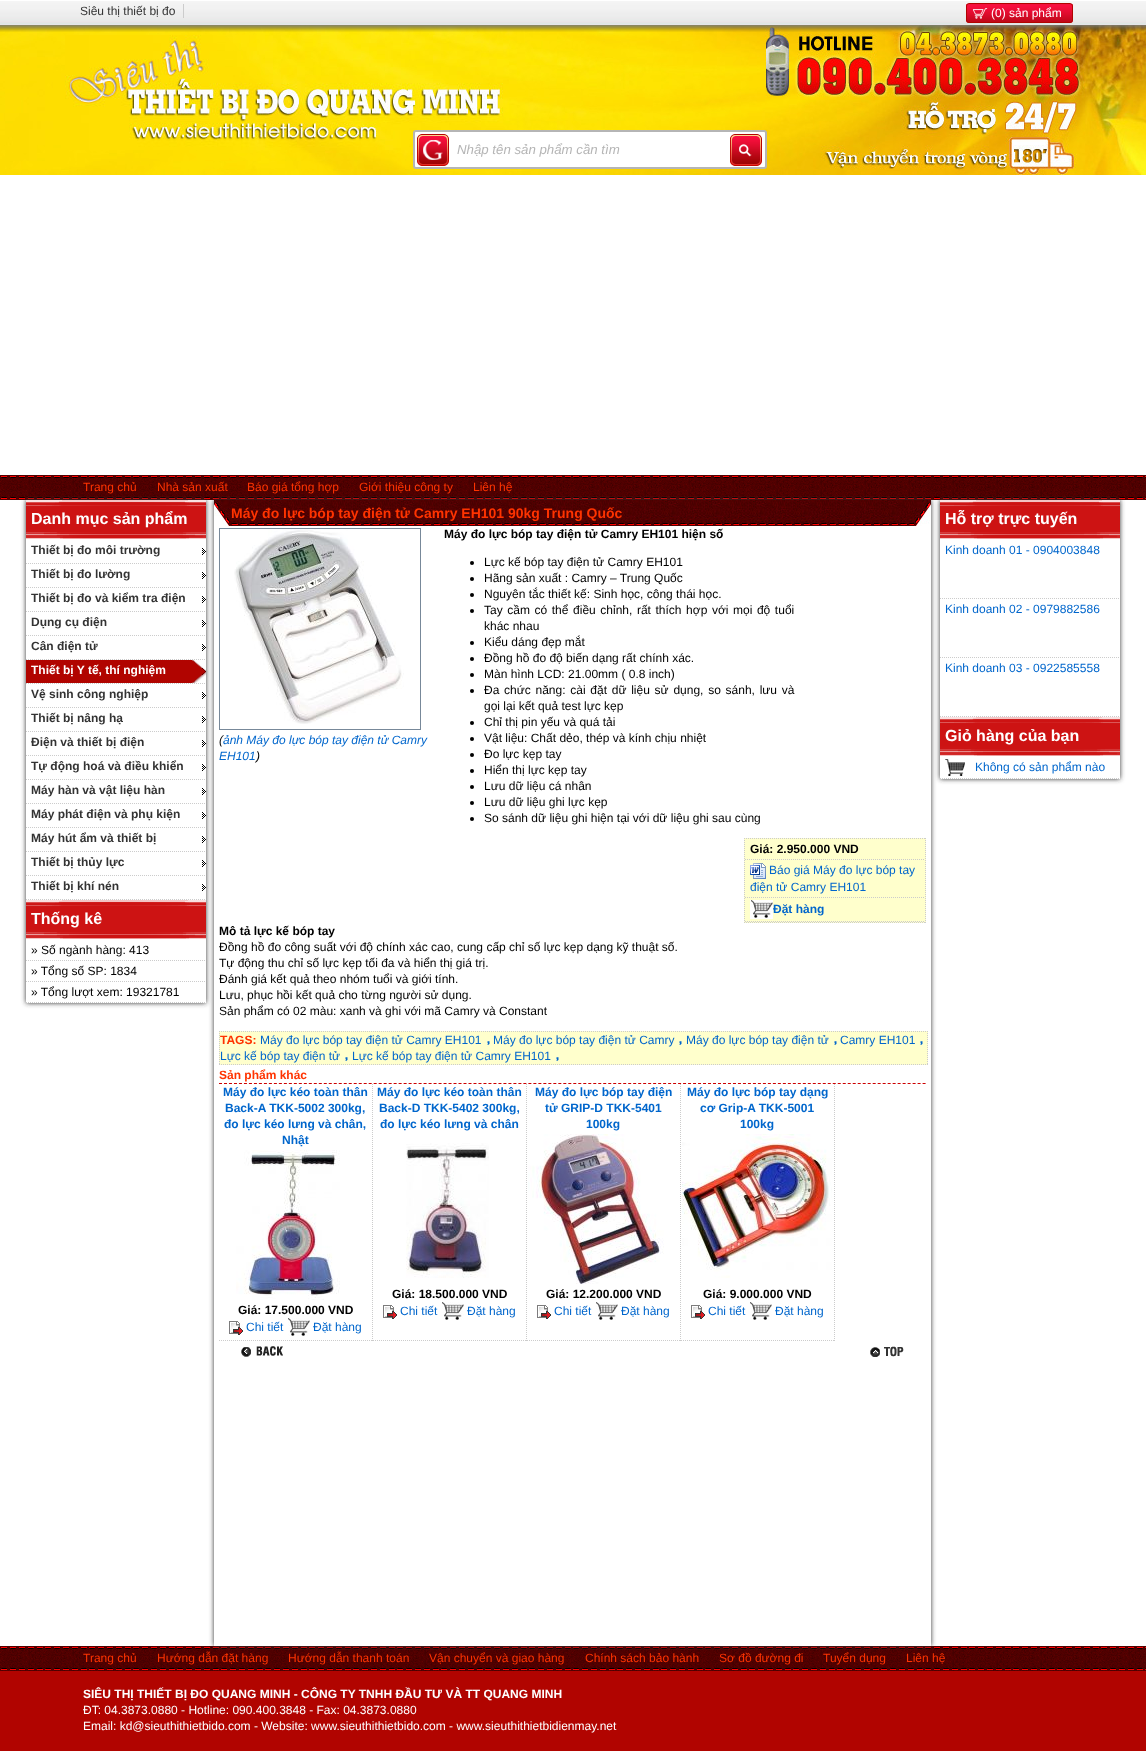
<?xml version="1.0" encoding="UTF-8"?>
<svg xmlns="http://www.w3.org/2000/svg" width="1146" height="1756">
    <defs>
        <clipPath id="clip1"><path d="M 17 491 H 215 V 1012 H 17 Z M 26 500 H 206 V 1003 H 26 Z" clip-rule="evenodd"/></clipPath>
        <filter id="blur1" x="-50%" y="-200%" width="200%" height="500%"><feGaussianBlur stdDeviation="2.5"/></filter>
        <clipPath id="clip2"><path d="M 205 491 H 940 V 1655 H 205 Z M 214 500 H 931 V 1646 H 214 Z" clip-rule="evenodd"/></clipPath>
        <clipPath id="clip3"><path d="M 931 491 H 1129 V 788 H 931 Z M 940 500 H 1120 V 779 H 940 Z" clip-rule="evenodd"/></clipPath>
    </defs>
    <rect width="100%" height="100%" fill="#FFFFFF"/>
    <image x="0" y="1" width="1146" height="24" href="img_01.png"/>
    <text x="80" y="15" font-family="Liberation Sans" font-size="12" fill="#333333">Siêu thị thiết bị đo</text>
    <rect x="183" y="4" width="1" height="14" fill="#CCCCCC"/>
    <image x="966" y="4" width="107" height="19" href="img_02.png"/>
    <rect x="966.5" y="3.5" width="106" height="19" rx="2.5" fill="none" stroke="#B10400"/>
    <image x="972" y="8" width="16" height="11" href="img_03.png"/>
    <text x="991" y="17" font-family="Liberation Sans" font-size="12" fill="#FFFFFF">(0) sản phẩm</text>
    <image x="0" y="25" width="1146" height="150" href="img_04.png"/>
    <image x="0" y="25" width="1146" height="7" href="img_05.png"/>
    <image x="65" y="35" width="438" height="115" href="img_06.png"/>
    <rect x="414" y="131" width="352" height="37" rx="2" fill="#FFFFFF" stroke="#B5B5B5" stroke-width="2"/>
    <image x="417" y="134" width="32" height="32" href="img_07.png"/>
    <text x="457" y="154" font-family="Liberation Sans" font-size="13.25" font-style="italic" fill="#B5B5B5">Nhập tên sản phẩm cần tìm</text>
    <image x="730" y="134" width="32" height="32" href="img_08.png"/>
    <image x="0" y="475" width="1146" height="25" href="img_09.png"/>
    <text x="83" y="491" font-family="Liberation Sans" font-size="12" fill="#FF3300">Trang chủ</text>
    <text x="157" y="491" font-family="Liberation Sans" font-size="12" fill="#FF3300">Nhà sản xuất</text>
    <text x="247" y="491" font-family="Liberation Sans" font-size="12" fill="#FF3300">Báo giá tổng hợp</text>
    <text x="359" y="491" font-family="Liberation Sans" font-size="12" fill="#FF3300">Giới thiệu công ty</text>
    <text x="473" y="491" font-family="Liberation Sans" font-size="12" fill="#FF3300">Liên hệ</text>
    <g clip-path="url(#clip1)">
        <rect x="26" y="500" width="180" height="503" fill="#333333" filter="url(#blur1)"/>
    </g>
    <image x="26" y="500" width="180" height="39" href="img_10.png"/>
    <text x="31" y="524" font-family="Liberation Sans" font-size="16" font-weight="700" fill="#FFFFFF">Danh mục sản phẩm</text>
    <image x="26" y="900" width="180" height="39" href="img_10.png"/>
    <image x="0" y="1646" width="1146" height="25" href="img_09.png"/>
    <g clip-path="url(#clip2)">
        <rect x="214" y="500" width="717" height="1146" fill="#333333" filter="url(#blur1)"/>
    </g>
    <image x="202" y="548" width="4" height="7" href="img_11.png"/>
    <path d="M 26 563.5 H 206" fill="none" stroke="#CCCCCC" stroke-dasharray="1 1"/>
    <text x="31" y="554" font-family="Liberation Sans" font-size="12" font-weight="700" fill="#333333">Thiết bị đo môi trường</text>
    <image x="202" y="572" width="4" height="7" href="img_11.png"/>
    <path d="M 26 587.5 H 206" fill="none" stroke="#CCCCCC" stroke-dasharray="1 1"/>
    <text x="31" y="578" font-family="Liberation Sans" font-size="12" font-weight="700" fill="#333333">Thiết bị đo lường</text>
    <image x="202" y="596" width="4" height="7" href="img_11.png"/>
    <path d="M 26 611.5 H 206" fill="none" stroke="#CCCCCC" stroke-dasharray="1 1"/>
    <text x="31" y="602" font-family="Liberation Sans" font-size="12" font-weight="700" fill="#333333">Thiết bị đo và kiểm tra điện</text>
    <image x="202" y="620" width="4" height="7" href="img_11.png"/>
    <path d="M 26 635.5 H 206" fill="none" stroke="#CCCCCC" stroke-dasharray="1 1"/>
    <text x="31" y="626" font-family="Liberation Sans" font-size="12" font-weight="700" fill="#333333">Dụng cụ điện</text>
    <image x="202" y="644" width="4" height="7" href="img_11.png"/>
    <path d="M 26 659.5 H 206" fill="none" stroke="#CCCCCC" stroke-dasharray="1 1"/>
    <text x="31" y="650" font-family="Liberation Sans" font-size="12" font-weight="700" fill="#333333">Cân điện tử</text>
    <image x="202" y="668" width="4" height="7" href="img_11.png"/>
    <path d="M 26 683.5 H 206" fill="none" stroke="#CCCCCC" stroke-dasharray="1 1"/>
    <image x="26" y="660" width="180" height="23" href="img_12.png"/>
    <text x="31" y="674" font-family="Liberation Sans" font-size="12" font-weight="700" fill="#FFFFFF">Thiết bị Y tế, thí nghiệm</text>
    <image x="202" y="692" width="4" height="7" href="img_11.png"/>
    <path d="M 26 707.5 H 206" fill="none" stroke="#CCCCCC" stroke-dasharray="1 1"/>
    <text x="31" y="698" font-family="Liberation Sans" font-size="12" font-weight="700" fill="#333333">Vệ sinh công nghiệp</text>
    <image x="202" y="716" width="4" height="7" href="img_11.png"/>
    <path d="M 26 731.5 H 206" fill="none" stroke="#CCCCCC" stroke-dasharray="1 1"/>
    <text x="31" y="722" font-family="Liberation Sans" font-size="12" font-weight="700" fill="#333333">Thiết bị nâng hạ</text>
    <image x="202" y="740" width="4" height="7" href="img_11.png"/>
    <path d="M 26 755.5 H 206" fill="none" stroke="#CCCCCC" stroke-dasharray="1 1"/>
    <text x="31" y="746" font-family="Liberation Sans" font-size="12" font-weight="700" fill="#333333">Điện và thiết bị điện</text>
    <image x="202" y="764" width="4" height="7" href="img_11.png"/>
    <path d="M 26 779.5 H 206" fill="none" stroke="#CCCCCC" stroke-dasharray="1 1"/>
    <text x="31" y="770" font-family="Liberation Sans" font-size="12" font-weight="700" fill="#333333">Tự động hoá và điều khiển</text>
    <image x="202" y="788" width="4" height="7" href="img_11.png"/>
    <path d="M 26 803.5 H 206" fill="none" stroke="#CCCCCC" stroke-dasharray="1 1"/>
    <text x="31" y="794" font-family="Liberation Sans" font-size="12" font-weight="700" fill="#333333">Máy hàn và vật liệu hàn</text>
    <image x="202" y="812" width="4" height="7" href="img_11.png"/>
    <path d="M 26 827.5 H 206" fill="none" stroke="#CCCCCC" stroke-dasharray="1 1"/>
    <text x="31" y="818" font-family="Liberation Sans" font-size="12" font-weight="700" fill="#333333">Máy phát điện và phụ kiện</text>
    <image x="202" y="836" width="4" height="7" href="img_11.png"/>
    <path d="M 26 851.5 H 206" fill="none" stroke="#CCCCCC" stroke-dasharray="1 1"/>
    <text x="31" y="842" font-family="Liberation Sans" font-size="12" font-weight="700" fill="#333333">Máy hút ẩm và thiết bị</text>
    <image x="202" y="860" width="4" height="7" href="img_11.png"/>
    <path d="M 26 875.5 H 206" fill="none" stroke="#CCCCCC" stroke-dasharray="1 1"/>
    <text x="31" y="866" font-family="Liberation Sans" font-size="12" font-weight="700" fill="#333333">Thiết bị thủy lực</text>
    <image x="202" y="884" width="4" height="7" href="img_11.png"/>
    <path d="M 26 899.5 H 206" fill="none" stroke="#CCCCCC" stroke-dasharray="1 1"/>
    <text x="31" y="890" font-family="Liberation Sans" font-size="12" font-weight="700" fill="#333333">Thiết bị khí nén</text>
    <text x="31" y="924" font-family="Liberation Sans" font-size="16" font-weight="700" fill="#FFFFFF">Thống kê</text>
    <path d="M 26 960.5 H 206" fill="none" stroke="#CCCCCC" stroke-dasharray="1 1"/>
    <text x="31" y="954" font-family="Liberation Sans" font-size="12" fill="#000000">» Số ngành hàng: 413</text>
    <path d="M 26 981.5 H 206" fill="none" stroke="#CCCCCC" stroke-dasharray="1 1"/>
    <text x="31" y="975" font-family="Liberation Sans" font-size="12" fill="#000000">» Tổng số SP: 1834</text>
    <path d="M 26 1002.5 H 206" fill="none" stroke="#CCCCCC" stroke-dasharray="1 1"/>
    <text x="31" y="996" font-family="Liberation Sans" font-size="12" fill="#000000">» Tổng lượt xem: 19321781</text>
    <image x="231" y="500" width="683" height="26" href="img_13.png"/>
    <image x="214" y="500" width="17" height="26" href="img_14.png"/>
    <text x="231" y="518" font-family="Liberation Sans" font-size="14" font-weight="700" fill="#FF3300">Máy đo lực bóp tay điện tử Camry EH101 90kg Trung Quốc</text>
    <image x="914" y="500" width="17" height="26" href="img_15.png"/>
    <rect x="219.5" y="528.5" width="201" height="201" fill="none" stroke="#778899"/>
    <image x="234" y="529" width="170" height="195" href="img_16.png"/>
    <text x="219" y="744" font-family="Liberation Sans" font-size="12" font-style="italic" fill="#000000">(</text>
    <text x="223" y="744" font-family="Liberation Sans" font-size="12" font-style="italic" fill="#0066CC">ảnh Máy đo lực bóp tay điện tử Camry</text>
    <text x="219" y="760" font-family="Liberation Sans" font-size="12" font-style="italic" fill="#0066CC">EH101</text>
    <text x="256" y="760" font-family="Liberation Sans" font-size="12" font-style="italic" fill="#000000">)</text>
    <text x="444" y="538" font-family="Liberation Sans" font-size="12" font-weight="700" fill="#000000">Máy đo lực bóp tay điện tử Camry EH101 hiện số</text>
    <circle cx="472" cy="563" r="2" fill="#000000"/>
    <text x="484" y="566" font-family="Liberation Sans" font-size="12" fill="#000000">Lực kế bóp tay điện tử Camry EH101</text>
    <circle cx="472" cy="579" r="2" fill="#000000"/>
    <text x="484" y="582" font-family="Liberation Sans" font-size="12" fill="#000000">Hãng sản xuất : Camry – Trung Quốc</text>
    <circle cx="472" cy="595" r="2" fill="#000000"/>
    <text x="484" y="598" font-family="Liberation Sans" font-size="12" fill="#000000">Nguyên tắc thiết kế: Sinh học, công thái học.</text>
    <circle cx="472" cy="611" r="2" fill="#000000"/>
    <text font-family="Liberation Sans" font-size="12" fill="#000000">
        <tspan x="484" y="614" word-spacing="1.25">Tay cầm có thể điều chỉnh, rất thích hợp với mọi độ tuổi</tspan>
        <tspan x="484" y="630">khác nhau</tspan>
    </text>
    <circle cx="472" cy="643" r="2" fill="#000000"/>
    <text x="484" y="646" font-family="Liberation Sans" font-size="12" fill="#000000">Kiểu dáng đẹp mắt</text>
    <circle cx="472" cy="659" r="2" fill="#000000"/>
    <text x="484" y="662" font-family="Liberation Sans" font-size="12" fill="#000000">Đồng hồ đo độ biến dạng rất chính xác.</text>
    <circle cx="472" cy="675" r="2" fill="#000000"/>
    <text x="484" y="678" font-family="Liberation Sans" font-size="12" fill="#000000">Màn hình LCD: 21.00mm ( 0.8 inch)</text>
    <circle cx="472" cy="691" r="2" fill="#000000"/>
    <text font-family="Liberation Sans" font-size="12" fill="#000000">
        <tspan x="484" y="694" word-spacing="1.4">Đa chức năng: cài đặt dữ liệu sử dụng, so sánh, lưu và</tspan>
        <tspan x="484" y="710">gọi lại kết quả test lực kẹp</tspan>
    </text>
    <circle cx="472" cy="723" r="2" fill="#000000"/>
    <text x="484" y="726" font-family="Liberation Sans" font-size="12" fill="#000000">Chỉ thị pin yếu và quá tải</text>
    <circle cx="472" cy="739" r="2" fill="#000000"/>
    <text x="484" y="742" font-family="Liberation Sans" font-size="12" fill="#000000">Vật liệu: Chất dẻo, thép và kính chịu nhiệt</text>
    <circle cx="472" cy="755" r="2" fill="#000000"/>
    <text x="484" y="758" font-family="Liberation Sans" font-size="12" fill="#000000">Đo lực kẹp tay</text>
    <circle cx="472" cy="771" r="2" fill="#000000"/>
    <text x="484" y="774" font-family="Liberation Sans" font-size="12" fill="#000000">Hiển thị lực kẹp tay</text>
    <circle cx="472" cy="787" r="2" fill="#000000"/>
    <text x="484" y="790" font-family="Liberation Sans" font-size="12" fill="#000000">Lưu dữ liệu cá nhân</text>
    <circle cx="472" cy="803" r="2" fill="#000000"/>
    <text x="484" y="806" font-family="Liberation Sans" font-size="12" fill="#000000">Lưu dữ liệu ghi lực kẹp</text>
    <circle cx="472" cy="819" r="2" fill="#000000"/>
    <text x="484" y="822" font-family="Liberation Sans" font-size="12" fill="#000000">So sánh dữ liệu ghi hiện tại với dữ liệu ghi sau cùng</text>
    <rect x="744" y="838" width="182" height="85" fill="#FFFFCC"/>
    <path d="M 744 838.5 H 926" fill="none" stroke="#CCCCCC" stroke-dasharray="1 1"/>
    <path d="M 925.5 838 V 923" fill="none" stroke="#CCCCCC" stroke-dasharray="1 1"/>
    <path d="M 744 922.5 H 926" fill="none" stroke="#CCCCCC" stroke-dasharray="1 1"/>
    <path d="M 744.5 838 V 923" fill="none" stroke="#CCCCCC" stroke-dasharray="1 1"/>
    <path d="M 745 859.5 H 925" fill="none" stroke="#CCCCCC" stroke-dasharray="1 1"/>
    <text x="750" y="853" font-family="Liberation Sans" font-size="12" font-weight="700" fill="#000000">Giá: 2.950.000 VND</text>
    <path d="M 745 897.5 H 925" fill="none" stroke="#CCCCCC" stroke-dasharray="1 1"/>
    <image x="750" y="863" width="16" height="16" href="img_17.png"/>
    <text x="769" y="874" font-family="Liberation Sans" font-size="12" fill="#0066CC">Báo giá Máy đo lực bóp tay</text>
    <text x="750" y="891" font-family="Liberation Sans" font-size="12" fill="#0066CC">điện tử Camry EH101</text>
    <path d="M 745 921.5 H 925" fill="none" stroke="#CCCCCC" stroke-dasharray="1 1"/>
    <image x="750" y="900" width="23" height="19" href="img_18.png"/>
    <text x="773" y="913" font-family="Liberation Sans" font-size="12" font-weight="700" fill="#0066CC">Đặt hàng</text>
    <text x="219" y="935" font-family="Liberation Sans" font-size="12" font-weight="700" fill="#000000">Mô tả lực kế bóp tay</text>
    <text font-family="Liberation Sans" font-size="12" fill="#000000">
        <tspan x="219" y="951">Đồng hồ đo công suất với độ chính xác cao, cung cấp chỉ số lực kẹp dạng kỹ thuật số.</tspan>
        <tspan x="219" y="967">Tự động thu chỉ số lực kẹp tối đa và hiển thị giá trị.</tspan>
        <tspan x="219" y="983">Đánh giá kết quả theo nhóm tuổi và giới tính.</tspan>
        <tspan x="219" y="999">Lưu, phục hồi kết quả cho từng người sử dụng.</tspan>
        <tspan x="219" y="1015">Sản phẩm có 02 màu: xanh và ghi với mã Camry và Constant</tspan>
    </text>
    <rect x="219" y="1031" width="709" height="34" fill="#FFFFCC"/>
    <path d="M 219 1031.5 H 928" fill="none" stroke="#CCCCCC" stroke-dasharray="1 1"/>
    <path d="M 927.5 1031 V 1065" fill="none" stroke="#CCCCCC" stroke-dasharray="1 1"/>
    <path d="M 219 1064.5 H 928" fill="none" stroke="#CCCCCC" stroke-dasharray="1 1"/>
    <path d="M 219.5 1031 V 1065" fill="none" stroke="#CCCCCC" stroke-dasharray="1 1"/>
    <text x="220" y="1044" font-family="Liberation Sans" font-size="12" font-weight="700" fill="#FF3300">TAGS:</text>
    <text x="260" y="1044" font-family="Liberation Sans" font-size="12" fill="#0066CC">Máy đo lực bóp tay điện tử Camry EH101</text>
    <image x="487" y="1041" width="3" height="6" href="img_19.png"/>
    <text x="493" y="1044" font-family="Liberation Sans" font-size="12" fill="#0066CC">Máy đo lực bóp tay điện tử Camry</text>
    <image x="679" y="1041" width="3" height="6" href="img_19.png"/>
    <text x="686" y="1044" font-family="Liberation Sans" font-size="12" fill="#0066CC">Máy đo lực bóp tay điện tử</text>
    <image x="834" y="1041" width="3" height="6" href="img_19.png"/>
    <text x="840" y="1044" font-family="Liberation Sans" font-size="12" fill="#0066CC">Camry EH101</text>
    <image x="920" y="1041" width="3" height="6" href="img_19.png"/>
    <text x="220" y="1060" font-family="Liberation Sans" font-size="12" fill="#0066CC">Lực kế bóp tay điện tử</text>
    <image x="345" y="1057" width="3" height="6" href="img_19.png"/>
    <text x="352" y="1060" font-family="Liberation Sans" font-size="12" fill="#0066CC">Lực kế bóp tay điện tử Camry EH101</text>
    <image x="556" y="1057" width="3" height="6" href="img_19.png"/>
    <path d="M 219 1083.5 H 926" fill="none" stroke="#CC0000" stroke-dasharray="3 1.99"/>
    <text x="219" y="1079" font-family="Liberation Sans" font-size="12" font-weight="700" fill="#FF3300">Sản phẩm khác</text>
    <path d="M 372.5 1084 V 1341" fill="none" stroke="#CCCCCC" stroke-dasharray="1 1"/>
    <path d="M 219 1340.5 H 373" fill="none" stroke="#CCCCCC" stroke-dasharray="1 1"/>
    <text x="223" y="1096" font-family="Liberation Sans" font-size="12" font-weight="700" fill="#0066CC">Máy đo lực kéo toàn thân</text>
    <text x="225" y="1112" font-family="Liberation Sans" font-size="12" font-weight="700" fill="#0066CC">Back-A TKK-5002 300kg,</text>
    <text x="224" y="1128" font-family="Liberation Sans" font-size="12" font-weight="700" fill="#0066CC">đo lực kéo lưng và chân,</text>
    <text x="282" y="1144" font-family="Liberation Sans" font-size="12" font-weight="700" fill="#0066CC">Nhật</text>
    <image x="236" y="1150" width="104" height="150" href="img_20.png"/>
    <text x="238" y="1314" font-family="Liberation Sans" font-size="12" font-weight="700" fill="#000000">Giá: 17.500.000 VND</text>
    <image x="229" y="1321" width="14" height="14" href="img_21.png"/>
    <text x="246" y="1331" font-family="Liberation Sans" font-size="12" fill="#0066CC">Chi tiết</text>
    <image x="288" y="1318" width="22" height="18" href="img_22.png"/>
    <text x="313" y="1331" font-family="Liberation Sans" font-size="12" fill="#0066CC">Đặt hàng</text>
    <path d="M 526.5 1084 V 1341" fill="none" stroke="#CCCCCC" stroke-dasharray="1 1"/>
    <path d="M 373 1340.5 H 527" fill="none" stroke="#CCCCCC" stroke-dasharray="1 1"/>
    <text x="377" y="1096" font-family="Liberation Sans" font-size="12" font-weight="700" fill="#0066CC">Máy đo lực kéo toàn thân</text>
    <text x="379" y="1112" font-family="Liberation Sans" font-size="12" font-weight="700" fill="#0066CC">Back-D TKK-5402 300kg,</text>
    <text x="380" y="1128" font-family="Liberation Sans" font-size="12" font-weight="700" fill="#0066CC">đo lực kéo lưng và chân</text>
    <image x="406" y="1143" width="83" height="135" href="img_23.png"/>
    <text x="392" y="1298" font-family="Liberation Sans" font-size="12" font-weight="700" fill="#000000">Giá: 18.500.000 VND</text>
    <image x="383" y="1305" width="14" height="14" href="img_21.png"/>
    <text x="400" y="1315" font-family="Liberation Sans" font-size="12" fill="#0066CC">Chi tiết</text>
    <image x="442" y="1302" width="22" height="18" href="img_22.png"/>
    <text x="467" y="1315" font-family="Liberation Sans" font-size="12" fill="#0066CC">Đặt hàng</text>
    <path d="M 680.5 1084 V 1341" fill="none" stroke="#CCCCCC" stroke-dasharray="1 1"/>
    <path d="M 527 1340.5 H 681" fill="none" stroke="#CCCCCC" stroke-dasharray="1 1"/>
    <text x="535" y="1096" font-family="Liberation Sans" font-size="12" font-weight="700" fill="#0066CC">Máy đo lực bóp tay điện</text>
    <text x="545" y="1112" font-family="Liberation Sans" font-size="12" font-weight="700" fill="#0066CC">tử GRIP-D TKK-5401</text>
    <text x="586" y="1128" font-family="Liberation Sans" font-size="12" font-weight="700" fill="#0066CC">100kg</text>
    <image x="528" y="1134" width="136" height="150" href="img_24.png"/>
    <text x="546" y="1298" font-family="Liberation Sans" font-size="12" font-weight="700" fill="#000000">Giá: 12.200.000 VND</text>
    <image x="537" y="1305" width="14" height="14" href="img_21.png"/>
    <text x="554" y="1315" font-family="Liberation Sans" font-size="12" fill="#0066CC">Chi tiết</text>
    <image x="596" y="1302" width="22" height="18" href="img_22.png"/>
    <text x="621" y="1315" font-family="Liberation Sans" font-size="12" fill="#0066CC">Đặt hàng</text>
    <path d="M 834.5 1084 V 1341" fill="none" stroke="#CCCCCC" stroke-dasharray="1 1"/>
    <path d="M 681 1340.5 H 835" fill="none" stroke="#CCCCCC" stroke-dasharray="1 1"/>
    <text x="687" y="1096" font-family="Liberation Sans" font-size="12" font-weight="700" fill="#0066CC">Máy đo lực bóp tay dạng</text>
    <text x="700" y="1112" font-family="Liberation Sans" font-size="12" font-weight="700" fill="#0066CC">cơ Grip-A TKK-5001</text>
    <text x="740" y="1128" font-family="Liberation Sans" font-size="12" font-weight="700" fill="#0066CC">100kg</text>
    <image x="682" y="1134" width="150" height="144" href="img_25.png"/>
    <text x="703" y="1298" font-family="Liberation Sans" font-size="12" font-weight="700" fill="#000000">Giá: 9.000.000 VND</text>
    <image x="691" y="1305" width="14" height="14" href="img_21.png"/>
    <text x="708" y="1315" font-family="Liberation Sans" font-size="12" fill="#0066CC">Chi tiết</text>
    <image x="750" y="1302" width="22" height="18" href="img_22.png"/>
    <text x="775" y="1315" font-family="Liberation Sans" font-size="12" fill="#0066CC">Đặt hàng</text>
    <image x="241" y="1346" width="42" height="11" href="img_26.png"/>
    <image x="870" y="1346" width="34" height="11" href="img_27.png"/>
    <g clip-path="url(#clip3)">
        <rect x="940" y="500" width="180" height="279" fill="#333333" filter="url(#blur1)"/>
    </g>
    <image x="940" y="500" width="180" height="39" href="img_10.png"/>
    <text x="945" y="524" font-family="Liberation Sans" font-size="16" font-weight="700" fill="#FFFFFF">Hỗ trợ trực tuyến</text>
    <path d="M 940 598.5 H 1120" fill="none" stroke="#CCCCCC" stroke-dasharray="1 1"/>
    <text x="945" y="554" font-family="Liberation Sans" font-size="12" fill="#0066CC">Kinh doanh 01 - 0904003848</text>
    <path d="M 940 657.5 H 1120" fill="none" stroke="#CCCCCC" stroke-dasharray="1 1"/>
    <text x="945" y="613" font-family="Liberation Sans" font-size="12" fill="#0066CC">Kinh doanh 02 - 0979882586</text>
    <path d="M 940 716.5 H 1120" fill="none" stroke="#CCCCCC" stroke-dasharray="1 1"/>
    <text x="945" y="672" font-family="Liberation Sans" font-size="12" fill="#0066CC">Kinh doanh 03 - 0922585558</text>
    <image x="940" y="717" width="180" height="39" href="img_10.png"/>
    <text x="945" y="741" font-family="Liberation Sans" font-size="16" font-weight="700" fill="#FFFFFF">Giỏ hàng của bạn</text>
    <path d="M 940 778.5 H 1120" fill="none" stroke="#CCCCCC" stroke-dasharray="1 1"/>
    <image x="945" y="759" width="20" height="17" href="img_28.png"/>
    <text x="975" y="771" font-family="Liberation Sans" font-size="12" fill="#0066CC">Không có sản phẩm nào</text>
    <text x="83" y="1662" font-family="Liberation Sans" font-size="12" fill="#FF3300">Trang chủ</text>
    <text x="157" y="1662" font-family="Liberation Sans" font-size="12" fill="#FF3300">Hướng dẫn đặt hàng</text>
    <text x="288" y="1662" font-family="Liberation Sans" font-size="12" fill="#FF3300">Hướng dẫn thanh toán</text>
    <text x="429" y="1662" font-family="Liberation Sans" font-size="12" fill="#FF3300">Vận chuyển và giao hàng</text>
    <text x="585" y="1662" font-family="Liberation Sans" font-size="12" fill="#FF3300">Chính sách bảo hành</text>
    <text x="719" y="1662" font-family="Liberation Sans" font-size="12" fill="#FF3300">Sơ đồ đường đi</text>
    <text x="823" y="1662" font-family="Liberation Sans" font-size="12" fill="#FF3300">Tuyển dụng</text>
    <text x="906" y="1662" font-family="Liberation Sans" font-size="12" fill="#FF3300">Liên hệ</text>
    <rect x="0" y="1671" width="1146" height="80" fill="#B10400"/>
    <text x="83" y="1698" font-family="Liberation Sans" font-size="12" font-weight="700" fill="#FFFFFF">SIÊU THỊ THIẾT BỊ ĐO QUANG MINH - CÔNG TY TNHH ĐẦU TƯ VÀ TT QUANG MINH</text>
    <text font-family="Liberation Sans" font-size="12" fill="#FFFFFF">
        <tspan x="83" y="1714">ĐT: 04.3873.0880 - Hotline: 090.400.3848 - Fax: 04.3873.0880</tspan>
        <tspan x="83" y="1730">Email: kd@sieuthithietbido.com - Website: www.sieuthithietbido.com - www.sieuthithietbidienmay.net</tspan>
    </text>
</svg>
